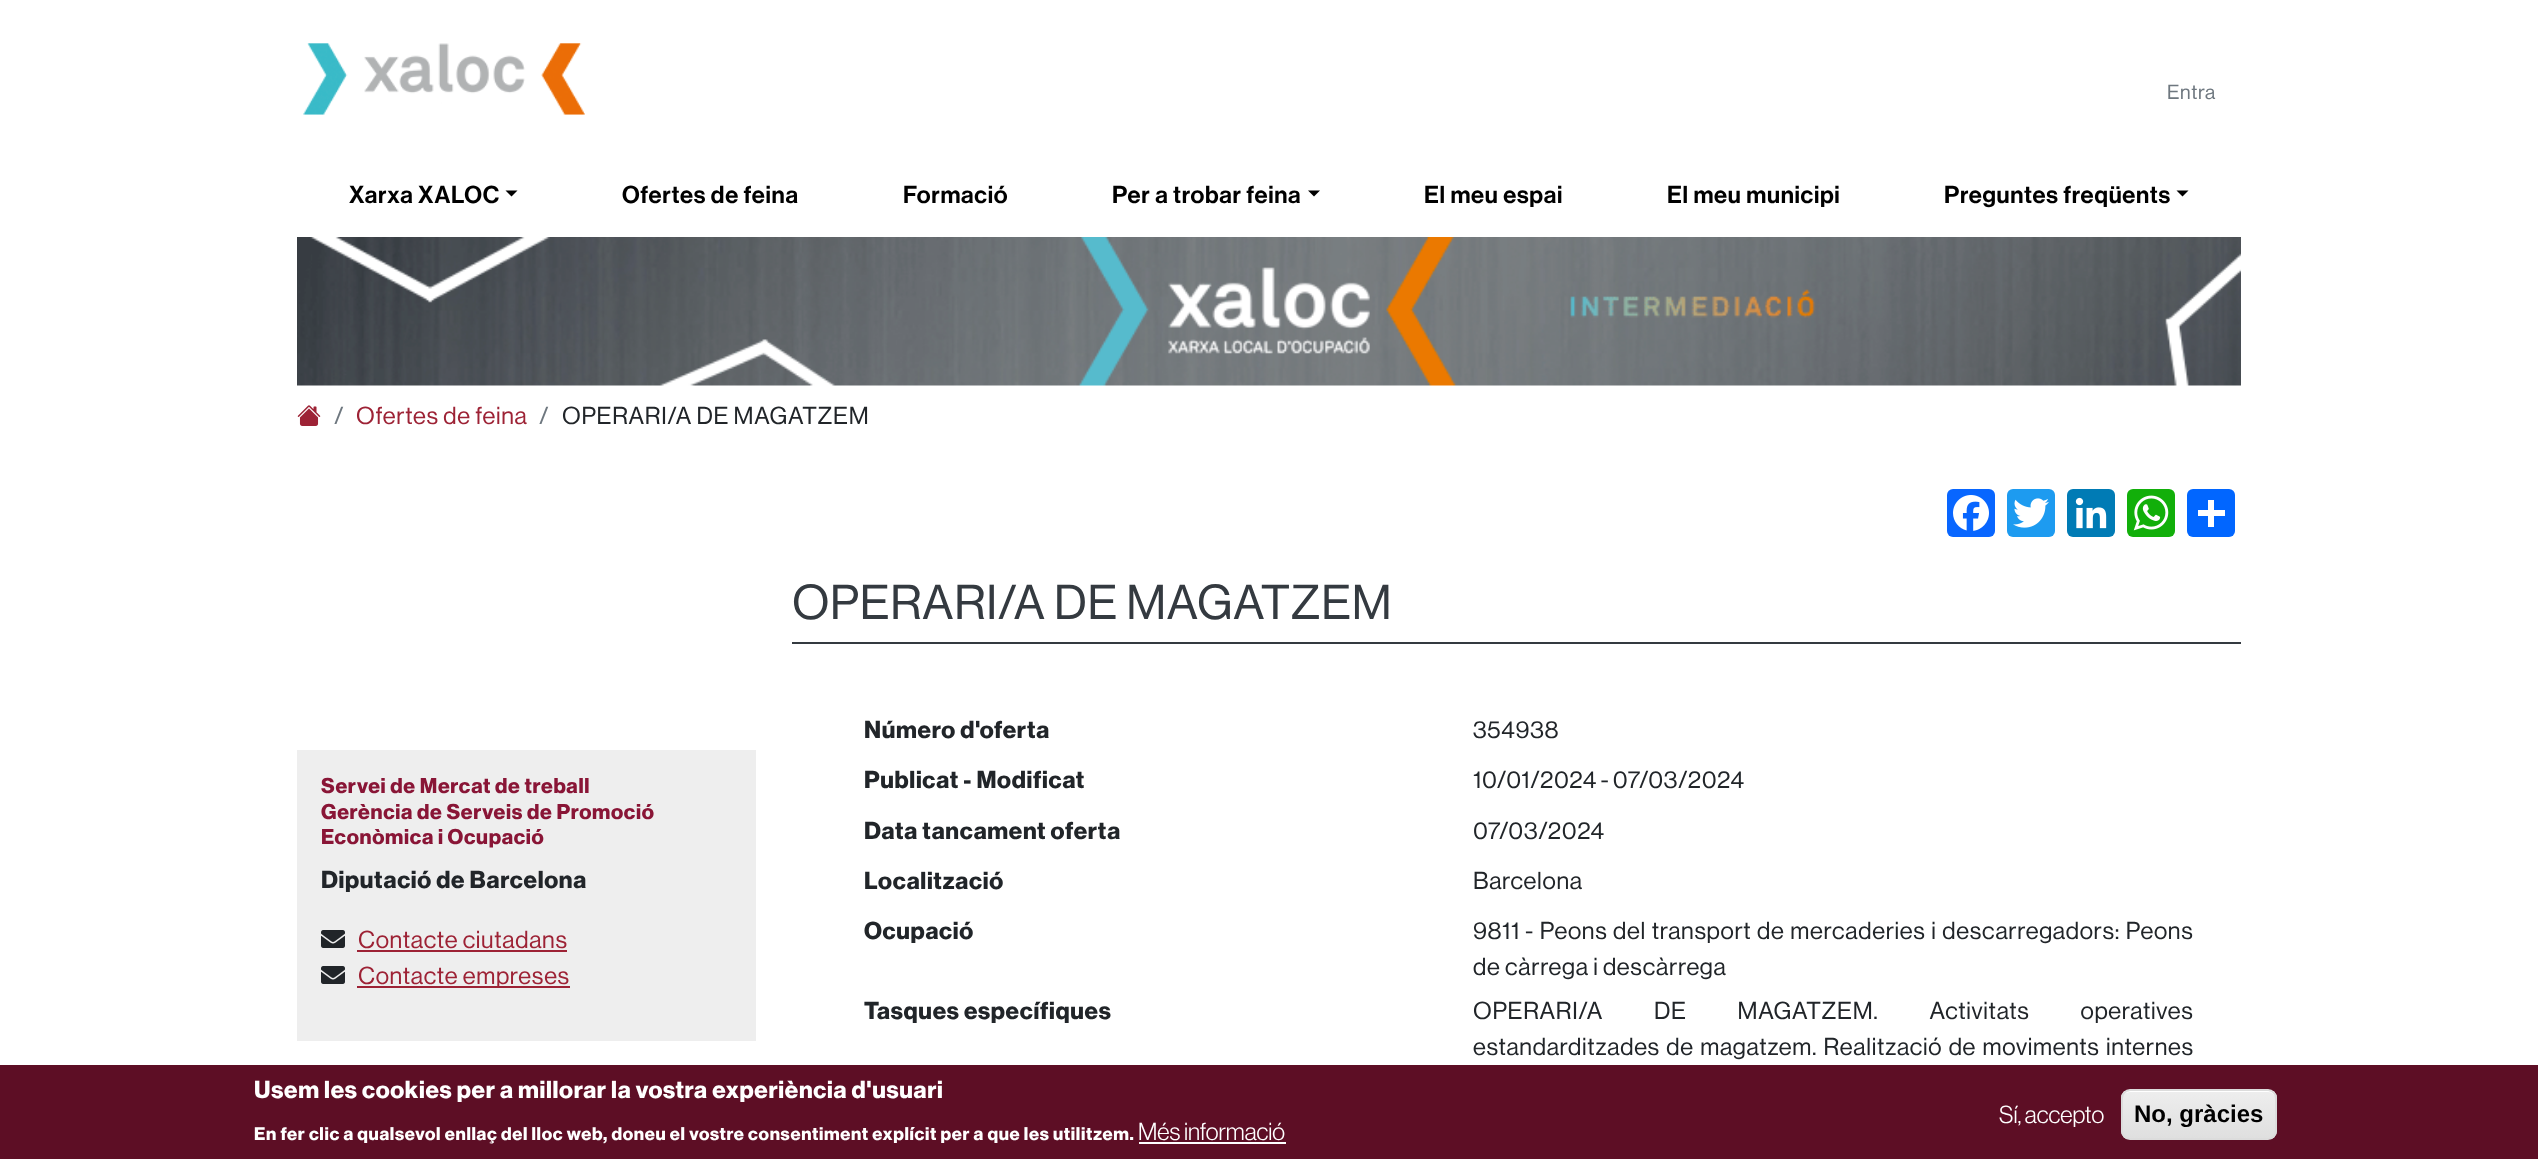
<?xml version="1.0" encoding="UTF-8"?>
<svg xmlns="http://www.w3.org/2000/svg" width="2538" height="1159">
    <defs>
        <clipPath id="clip1"><rect x="2121" y="1089" width="156" height="51" rx="9"/></clipPath>
        <linearGradient id="g1" gradientUnits="userSpaceOnUse" x1="2199" y1="1091" x2="2199" y2="1139"><stop offset="0.05" stop-color="#EDEDED"/><stop offset="1" stop-color="#DFDFDF"/></linearGradient>
    </defs>
    <rect width="100%" height="100%" fill="#FFFFFF"/>
    <image x="303" y="43" width="282" height="72" href="img_01.png"/>
    <text x="2167" y="99" font-family="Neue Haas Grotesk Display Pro" font-size="20" font-weight="500" letter-spacing="0.68" fill="#6E777F">Entra</text>
    <text x="349" y="203" font-family="'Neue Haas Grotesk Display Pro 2'" font-size="24" font-weight="500" letter-spacing="0.68" fill="#000000">Xarxa XALOC</text>
    <path d="M 505.5 190.5 H 517.5 L 511.5 196.5 Z" fill="#000000"/>
    <text x="622" y="203" font-family="'Neue Haas Grotesk Display Pro 2'" font-size="24" font-weight="500" letter-spacing="0.68" fill="#000000">Ofertes de feina</text>
    <text x="903" y="203" font-family="'Neue Haas Grotesk Display Pro 2'" font-size="24" font-weight="500" letter-spacing="0.68" fill="#000000">Formació</text>
    <text x="1112" y="203" font-family="'Neue Haas Grotesk Display Pro 2'" font-size="24" font-weight="500" letter-spacing="0.68" fill="#000000">Per a trobar feina</text>
    <path d="M 1308 190.5 H 1320 L 1314 196.5 Z" fill="#000000"/>
    <text x="1424" y="203" font-family="'Neue Haas Grotesk Display Pro 2'" font-size="24" font-weight="500" letter-spacing="0.68" fill="#000000">El meu espai</text>
    <text x="1667" y="203" font-family="'Neue Haas Grotesk Display Pro 2'" font-size="24" font-weight="500" letter-spacing="0.68" fill="#000000">El meu municipi</text>
    <text x="1944" y="203" font-family="'Neue Haas Grotesk Display Pro 2'" font-size="24" font-weight="500" letter-spacing="0.68" fill="#000000">Preguntes freqüents</text>
    <path d="M 2176.5 190.5 H 2188.5 L 2182.5 196.5 Z" fill="#000000"/>
    <image x="297" y="237" width="1944" height="149" href="img_02.png"/>
    <image x="297" y="405" width="24" height="21" href="img_03.png"/>
    <text x="334" y="424" font-family="Neue Haas Grotesk Display Pro" font-size="24" font-weight="500" letter-spacing="0.68" fill="#6E777F">/</text>
    <text x="356" y="424" font-family="Neue Haas Grotesk Display Pro" font-size="24" font-weight="500" letter-spacing="0.68" fill="#9D2235">Ofertes de feina</text>
    <text x="539" y="424" font-family="Neue Haas Grotesk Display Pro" font-size="24" font-weight="500" letter-spacing="0.68" fill="#6E777F">/</text>
    <text x="562" y="424" font-family="Neue Haas Grotesk Display Pro" font-size="24" font-weight="500" letter-spacing="0.68" fill="#212529">OPERARI/A DE MAGATZEM</text>
    <rect x="297" y="750" width="459" height="291" fill="#EEEEEE"/>
    <text font-family="Neue Haas Grotesk Display Pro" font-size="21" font-weight="700" letter-spacing="0.68" fill="#891536">
        <tspan x="321" y="793">Servei de Mercat de treball</tspan>
        <tspan x="321" y="819">Gerència de Serveis de Promoció</tspan>
        <tspan x="321" y="844">Econòmica i Ocupació</tspan>
    </text>
    <text x="321" y="888" font-family="Neue Haas Grotesk Display Pro" font-size="24" font-weight="700" letter-spacing="0.68" fill="#212529">Diputació de Barcelona</text>
    <image x="321" y="930" width="24" height="18" href="img_04.png"/>
    <text x="358" y="948" font-family="Neue Haas Grotesk Display Pro" font-size="24" font-weight="500" letter-spacing="0.68" fill="#9D2235">Contacte ciutadans</text>
    <rect x="357" y="950" width="210" height="2" fill="#9D2235"/>
    <image x="321" y="966" width="24" height="18" href="img_04.png"/>
    <rect x="357" y="986" width="213" height="2" fill="#9D2235"/>
    <text x="358" y="984" font-family="Neue Haas Grotesk Display Pro" font-size="24" font-weight="500" letter-spacing="0.68" fill="#9D2235">Contacte empreses</text>
    <rect x="1947" y="489" width="48" height="48" rx="6" fill="#0866FF"/>
    <image x="1953" y="495" width="36" height="36" href="img_05.png"/>
    <rect x="2007" y="489" width="48" height="48" rx="6" fill="#1D9BF0"/>
    <image x="2013" y="498" width="36" height="30" href="img_06.png"/>
    <rect x="2067" y="489" width="48" height="48" rx="6" fill="#007BB5"/>
    <image x="2075" y="497" width="32" height="32" href="img_07.png"/>
    <rect x="2127" y="489" width="48" height="48" rx="6" fill="#12AF0A"/>
    <image x="2133" y="495" width="36" height="36" href="img_08.png"/>
    <rect x="2187" y="489" width="48" height="48" rx="6" fill="#0166FF"/>
    <rect x="2208" y="500" width="6" height="27" fill="#FFFFFF"/>
    <rect x="2198" y="510" width="27" height="6" fill="#FFFFFF"/>
    <rect x="792" y="642" width="1449" height="2" fill="#343A40"/>
    <text x="792" y="619" font-family="Neue Haas Grotesk Display Pro" font-size="48" font-weight="500" letter-spacing="0.68" fill="#343A40">OPERARI/A DE MAGATZEM</text>
    <text x="864" y="738" font-family="Neue Haas Grotesk Display Pro" font-size="24" font-weight="700" letter-spacing="0.68" fill="#212529">Número d'oferta</text>
    <text x="1473" y="738" font-family="Neue Haas Grotesk Display Pro" font-size="24" font-weight="500" letter-spacing="0.68" fill="#212529">354938</text>
    <text x="864" y="788" font-family="Neue Haas Grotesk Display Pro" font-size="24" font-weight="700" letter-spacing="0.68" fill="#212529">Publicat - Modificat</text>
    <text x="1473" y="788" word-spacing="-1" font-family="Neue Haas Grotesk Display Pro" font-size="24" font-weight="500" letter-spacing="0.68" fill="#212529">10/01/2024 - 07/03/2024</text>
    <text x="864" y="839" font-family="Neue Haas Grotesk Display Pro" font-size="24" font-weight="700" letter-spacing="0.68" fill="#212529">Data tancament oferta</text>
    <text x="1473" y="839" font-family="Neue Haas Grotesk Display Pro" font-size="24" font-weight="500" letter-spacing="0.68" fill="#212529">07/03/2024</text>
    <text x="864" y="889" font-family="Neue Haas Grotesk Display Pro" font-size="24" font-weight="700" letter-spacing="0.68" fill="#212529">Localització</text>
    <text x="1473" y="889" font-family="Neue Haas Grotesk Display Pro" font-size="24" font-weight="500" letter-spacing="0.68" fill="#212529">Barcelona</text>
    <text x="864" y="939" font-family="Neue Haas Grotesk Display Pro" font-size="24" font-weight="700" letter-spacing="0.68" fill="#212529">Ocupació</text>
    <text x="1473" y="939" font-family="Neue Haas Grotesk Display Pro" font-size="24" font-weight="500" letter-spacing="0.68" fill="#212529">9811</text>
    <text x="1525" y="939" word-spacing="1.25" font-family="Neue Haas Grotesk Display Pro" font-size="24" font-weight="500" letter-spacing="0.68" fill="#212529">- Peons del transport de mercaderies i descarregadors: Peons</text>
    <text x="1473" y="975" font-family="Neue Haas Grotesk Display Pro" font-size="24" font-weight="500" letter-spacing="0.68" fill="#212529">de càrrega i descàrrega</text>
    <text x="864" y="1019" font-family="Neue Haas Grotesk Display Pro" font-size="24" font-weight="700" letter-spacing="0.68" fill="#212529">Tasques específiques</text>
    <text font-family="Neue Haas Grotesk Display Pro" font-size="24" font-weight="500" letter-spacing="0.68" fill="#212529">
        <tspan x="1473" y="1019" word-spacing="46.5">OPERARI/A DE MAGATZEM. Activitats operatives</tspan>
        <tspan x="1473" y="1055" word-spacing="2">estandarditzades de magatzem. Realització de moviments internes</tspan>
    </text>
    <rect x="0" y="1065" width="2538" height="94" fill="#5D0E25"/>
    <text x="254" y="1098" font-family="Neue Haas Grotesk Display Pro" font-size="24" font-weight="700" letter-spacing="0.68" fill="#FFFFFF">Usem les cookies per a millorar la vostra experiència d'usuari</text>
    <text x="254" y="1140" font-family="Neue Haas Grotesk Display Pro" font-size="18" font-weight="700" letter-spacing="0.68" fill="#FFFFFF">En fer clic a qualsevol enllaç del lloc web, doneu el vostre consentiment explícit per a que les utilitzem.</text>
    <text x="1138" y="1140" font-family="Neue Haas Grotesk Display Pro" font-size="24" fill="#FFFFFF">Més informació</text>
    <rect x="1139" y="1142" width="147" height="2" fill="#FFFFFF"/>
    <text x="1999" y="1123" font-family="Neue Haas Grotesk Display Pro" font-size="24" fill="#FFFFFF">Sí, accepto</text>
    <g clip-path="url(#clip1)">
        <rect x="2121" y="1091" width="156" height="48" fill="url(#g1)"/>
    </g>
    <path d="M 2130 1092 H 2268 C 2272 1092 2276 1095 2276 1100 V 1099 C 2276 1095 2272 1091 2268 1091 H 2131 C 2129 1091 2126 1092 2125 1094 C 2126 1093 2128 1092 2130 1092 Z" fill="#FFFFFF"/>
    <rect x="2122" y="1090" width="154" height="49" rx="8" fill="none" stroke="#DCDCDC" stroke-width="2"/>
    <text x="2134" y="1122" font-family="Liberation Sans" font-size="24" font-weight="700" fill="#000000">No, gràcies</text>
</svg>
